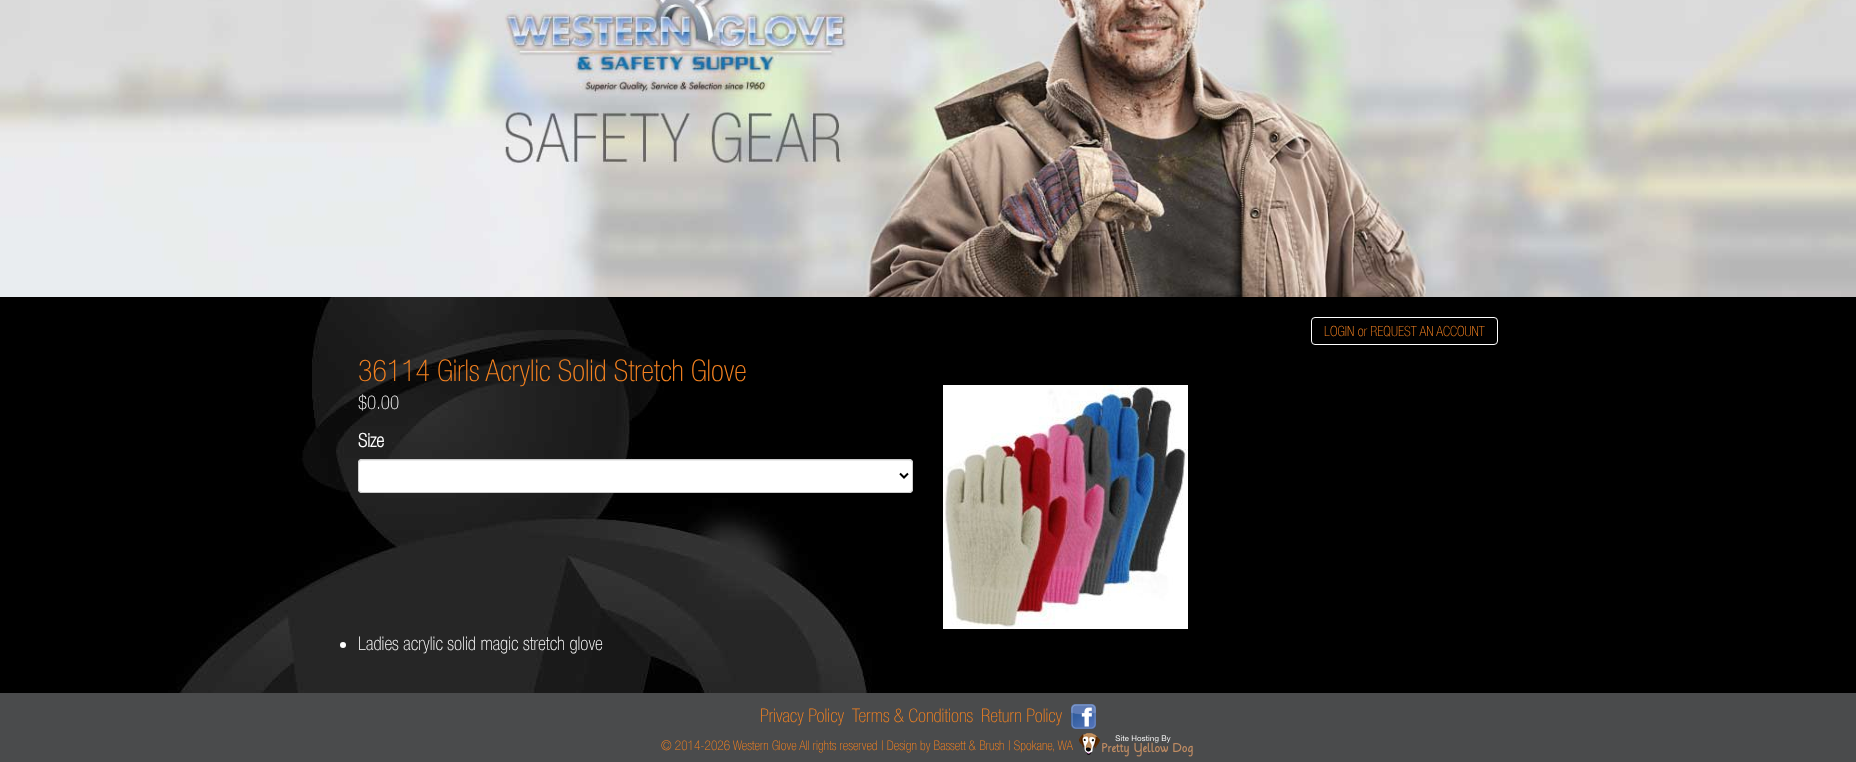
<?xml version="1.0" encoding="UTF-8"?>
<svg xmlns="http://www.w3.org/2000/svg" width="1856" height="762">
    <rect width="100%" height="100%" fill="#000000"/>
    <image x="156" y="297" width="724" height="396" href="img_01.png"/>
    <image x="0" y="0" width="1856" height="297" href="img_02.png"/>
    <rect x="1311.5" y="317.5" width="186" height="27" rx="3.5" fill="none" stroke="#FFFFFF"/>
    <text x="1324" y="336" font-family="Helvetica Neue" font-size="14" font-weight="100" fill="#F58220">LOGIN or REQUEST AN ACCOUNT</text>
    <text x="358" y="381" font-family="Helvetica Neue" font-size="30" font-weight="100" fill="#F58220">36114 Girls Acrylic Solid Stretch Glove</text>
    <text x="358" y="409" font-family="Helvetica Neue" font-size="19" font-weight="100" fill="#FFFFFF">$0.00</text>
    <text x="358" y="447" font-family="Helvetica Neue" font-size="19" font-weight="700" fill="#FFFFFF">Size</text>
    <rect x="358" y="459" width="555" height="34" rx="4" fill="#FFFFFF"/>
    <path d="M 362 461 H 909 C 911 461 912 462 912 464 C 912 462 911 460 909 460 H 362 L 360 461 L 359 462 V 464 C 359 462 360 461 362 461 Z" fill="#ECECEC"/>
    <rect x="358.5" y="459.5" width="554" height="33" rx="3.5" fill="none" stroke="#CCCCCC"/>
    <path d="M 900 473.5 L 904 477.5 L 908 473.5" fill="none" stroke="#000000" stroke-width="2"/>
    <image x="943" y="385" width="245" height="245" href="img_03.png"/>
    <circle cx="343" cy="645" r="3" fill="#FFFFFF"/>
    <text x="358" y="650" font-family="Helvetica Neue" font-size="19" font-weight="100" fill="#FFFFFF">Ladies acrylic solid magic stretch glove</text>
    <rect x="0" y="693" width="1856" height="69" fill="#4A4B4C"/>
    <text x="760" y="722" font-family="Helvetica Neue" font-size="18.75" font-weight="100" fill="#F58220">Privacy Policy</text>
    <text x="852" y="722" font-family="Helvetica Neue" font-size="18.75" font-weight="100" fill="#F58220">Terms &amp; Conditions</text>
    <text x="981" y="722" font-family="Helvetica Neue" font-size="18.75" font-weight="100" fill="#F58220">Return Policy</text>
    <image x="1071" y="704" width="25" height="25" href="img_04.png"/>
    <text x="661" y="750" font-family="Helvetica Neue" font-size="13.3" font-weight="100" fill="#F58220">© 2014-2026 Western Glove All rights reserved | Design by Bassett &amp; Brush | Spokane, WA</text>
    <image x="1079" y="733" width="114" height="24" href="img_05.png"/>
</svg>
